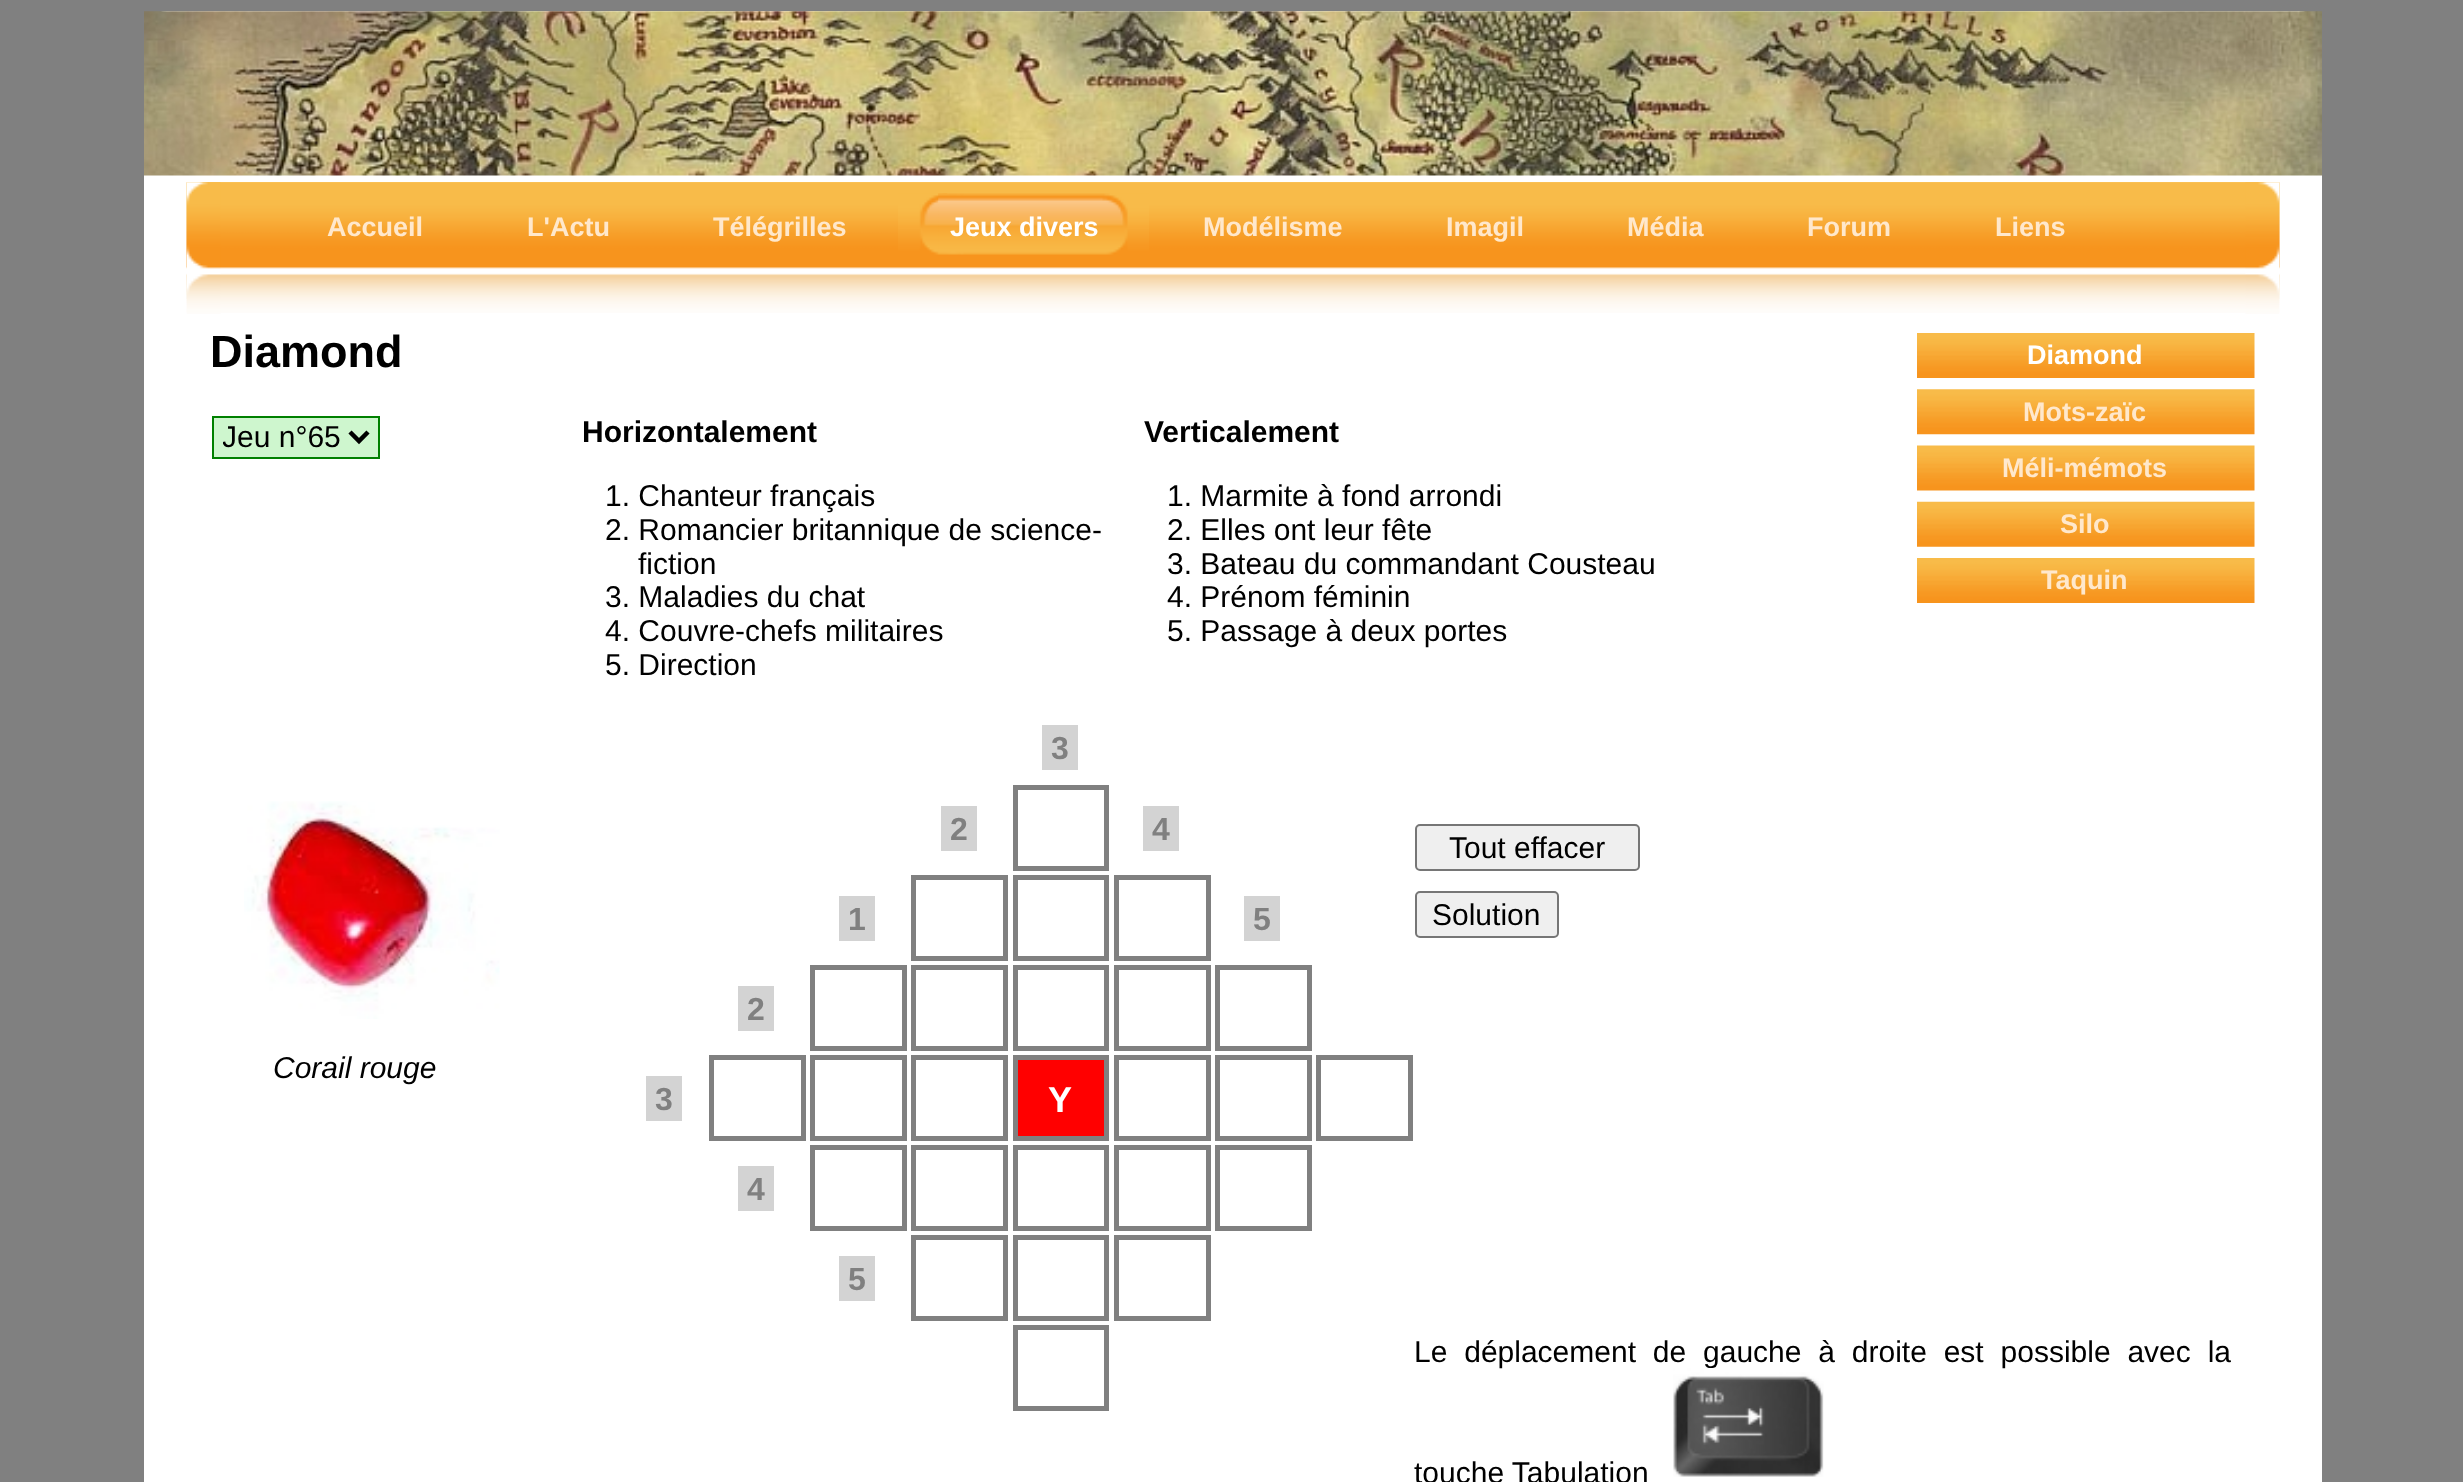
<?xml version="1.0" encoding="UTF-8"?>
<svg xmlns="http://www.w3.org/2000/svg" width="2463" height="1482">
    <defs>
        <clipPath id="clip1"><rect x="223" y="419" width="119" height="38"/></clipPath>
    </defs>
    <rect width="100%" height="100%" fill="#808080"/>
    <rect x="144" y="11" width="2178" height="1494" rx="23" fill="#FFFFFF"/>
    <image x="144" y="11" width="2178" height="165" href="img_01.png"/>
    <image x="186" y="182" width="2094" height="131" href="img_02.png"/>
    <image x="186" y="182" width="2094" height="117" href="img_04.png"/>
    <image x="186" y="182" width="35" height="132" href="img_03.png"/>
    <text x="327" y="236" font-family="Liberation Sans" font-size="27" font-weight="700" fill="#FFE8CC">Accueil</text>
    <text x="527" y="236" font-family="Liberation Sans" font-size="27" font-weight="700" fill="#FFE8CC">L'Actu</text>
    <text x="713" y="236" font-family="Liberation Sans" font-size="27" font-weight="700" fill="#FFE8CC">Télégrilles</text>
    <image x="898" y="193" width="50" height="62" href="img_05.png"/>
    <image x="938" y="193" width="211" height="62" href="img_06.png"/>
    <text x="950" y="236" font-family="Liberation Sans" font-size="27" font-weight="700" fill="#FFFFFF">Jeux divers</text>
    <text x="1203" y="236" font-family="Liberation Sans" font-size="27" font-weight="700" fill="#FFE8CC">Modélisme</text>
    <text x="1446" y="236" font-family="Liberation Sans" font-size="27" font-weight="700" fill="#FFE8CC">Imagil</text>
    <text x="1627" y="236" font-family="Liberation Sans" font-size="27" font-weight="700" fill="#FFE8CC">Média</text>
    <text x="1807" y="236" font-family="Liberation Sans" font-size="27" font-weight="700" fill="#FFE8CC">Forum</text>
    <text x="1995" y="236" font-family="Liberation Sans" font-size="27" font-weight="700" fill="#FFE8CC">Liens</text>
    <image x="2245" y="182" width="35" height="132" href="img_07.png"/>
    <text x="210" y="367" font-family="Liberation Sans" font-size="45" font-weight="700" fill="#000000">Diamond</text>
    <text x="582" y="442" font-family="Liberation Sans" font-size="30" font-weight="700" fill="#000000">Horizontalement</text>
    <text font-family="Liberation Sans" font-size="30" fill="#000000">
        <tspan x="605" y="506">1. Chanteur français</tspan>
        <tspan x="605" y="540">2. Romancier britannique de science-</tspan>
    </text>
    <text x="638" y="574" font-family="Liberation Sans" font-size="30" fill="#000000">fiction</text>
    <text font-family="Liberation Sans" font-size="30" fill="#000000">
        <tspan x="605" y="607">3. Maladies du chat</tspan>
        <tspan x="605" y="641">4. Couvre-chefs militaires</tspan>
        <tspan x="605" y="675">5. Direction</tspan>
    </text>
    <text x="1144" y="442" font-family="Liberation Sans" font-size="30" font-weight="700" fill="#000000">Verticalement</text>
    <text font-family="Liberation Sans" font-size="30" fill="#000000">
        <tspan x="1167" y="506">1. Marmite à fond arrondi</tspan>
        <tspan x="1167" y="540">2. Elles ont leur fête</tspan>
        <tspan x="1167" y="574">3. Bateau du commandant Cousteau</tspan>
        <tspan x="1167" y="607">4. Prénom féminin</tspan>
        <tspan x="1167" y="641">5. Passage à deux portes</tspan>
    </text>
    <image x="1917" y="333" width="338" height="45" href="img_08.png"/>
    <text x="2027" y="364" font-family="Liberation Sans" font-size="27" font-weight="700" fill="#FFFFFF">Diamond</text>
    <image x="1917" y="389" width="338" height="46" href="img_09.png"/>
    <text x="2023" y="421" font-family="Liberation Sans" font-size="27" font-weight="700" fill="#FFE8CC">Mots-zaïc</text>
    <image x="1917" y="445" width="338" height="46" href="img_10.png"/>
    <text x="2002" y="477" font-family="Liberation Sans" font-size="27" font-weight="700" fill="#FFE8CC">Méli-mémots</text>
    <image x="1917" y="501" width="338" height="46" href="img_11.png"/>
    <text x="2060" y="533" font-family="Liberation Sans" font-size="27" font-weight="700" fill="#FFE8CC">Silo</text>
    <image x="1917" y="558" width="338" height="45" href="img_12.png"/>
    <text x="2041" y="589" font-family="Liberation Sans" font-size="27" font-weight="700" fill="#FFE8CC">Taquin</text>
    <rect x="213" y="417" width="166" height="41" fill="#CEF6CE" stroke="#008000" stroke-width="2"/>
    <path d="M 350 432 L 359 441 L 368 432" fill="none" stroke="#000000" stroke-width="4.5"/>
    <g clip-path="url(#clip1)">
        <text x="222" y="447" font-family="Liberation Sans" font-size="30" fill="#000000">Jeu n°65</text>
    </g>
    <rect x="1042" y="725" width="36" height="45" fill="#D3D3D3"/>
    <text x="1051" y="759" font-family="Liberation Sans" font-size="32" font-weight="700" fill="#808080">3</text>
    <rect x="941" y="806" width="36" height="45" fill="#D3D3D3"/>
    <text x="950" y="840" font-family="Liberation Sans" font-size="32" font-weight="700" fill="#808080">2</text>
    <rect x="1015.5" y="787.5" width="91" height="81" fill="none" stroke="#808080" stroke-width="5"/>
    <rect x="1143" y="806" width="36" height="45" fill="#D3D3D3"/>
    <text x="1152" y="840" font-family="Liberation Sans" font-size="32" font-weight="700" fill="#808080">4</text>
    <rect x="839" y="896" width="36" height="45" fill="#D3D3D3"/>
    <text x="848" y="930" font-family="Liberation Sans" font-size="32" font-weight="700" fill="#808080">1</text>
    <rect x="913.5" y="877.5" width="92" height="81" fill="none" stroke="#808080" stroke-width="5"/>
    <rect x="1015.5" y="877.5" width="91" height="81" fill="none" stroke="#808080" stroke-width="5"/>
    <rect x="1116.5" y="877.5" width="92" height="81" fill="none" stroke="#808080" stroke-width="5"/>
    <rect x="1244" y="896" width="36" height="45" fill="#D3D3D3"/>
    <text x="1253" y="930" font-family="Liberation Sans" font-size="32" font-weight="700" fill="#808080">5</text>
    <rect x="738" y="986" width="36" height="45" fill="#D3D3D3"/>
    <text x="747" y="1020" font-family="Liberation Sans" font-size="32" font-weight="700" fill="#808080">2</text>
    <rect x="812.5" y="967.5" width="92" height="81" fill="none" stroke="#808080" stroke-width="5"/>
    <rect x="913.5" y="967.5" width="92" height="81" fill="none" stroke="#808080" stroke-width="5"/>
    <rect x="1015.5" y="967.5" width="91" height="81" fill="none" stroke="#808080" stroke-width="5"/>
    <rect x="1116.5" y="967.5" width="92" height="81" fill="none" stroke="#808080" stroke-width="5"/>
    <rect x="1217.5" y="967.5" width="92" height="81" fill="none" stroke="#808080" stroke-width="5"/>
    <rect x="646" y="1076" width="36" height="45" fill="#D3D3D3"/>
    <text x="655" y="1110" font-family="Liberation Sans" font-size="32" font-weight="700" fill="#808080">3</text>
    <rect x="711.5" y="1057.5" width="92" height="81" fill="none" stroke="#808080" stroke-width="5"/>
    <rect x="812.5" y="1057.5" width="92" height="81" fill="none" stroke="#808080" stroke-width="5"/>
    <rect x="913.5" y="1057.5" width="92" height="81" fill="none" stroke="#808080" stroke-width="5"/>
    <rect x="1015.5" y="1057.5" width="91" height="81" fill="#FF0000" stroke="#808080" stroke-width="5"/>
    <text x="1048" y="1112" font-family="Liberation Sans" font-size="36" font-weight="700" fill="#FFFFFF">Y</text>
    <rect x="1116.5" y="1057.5" width="92" height="81" fill="none" stroke="#808080" stroke-width="5"/>
    <rect x="1217.5" y="1057.5" width="92" height="81" fill="none" stroke="#808080" stroke-width="5"/>
    <rect x="1318.5" y="1057.5" width="92" height="81" fill="none" stroke="#808080" stroke-width="5"/>
    <rect x="738" y="1166" width="36" height="45" fill="#D3D3D3"/>
    <text x="747" y="1200" font-family="Liberation Sans" font-size="32" font-weight="700" fill="#808080">4</text>
    <rect x="812.5" y="1147.5" width="92" height="81" fill="none" stroke="#808080" stroke-width="5"/>
    <rect x="913.5" y="1147.5" width="92" height="81" fill="none" stroke="#808080" stroke-width="5"/>
    <rect x="1015.5" y="1147.5" width="91" height="81" fill="none" stroke="#808080" stroke-width="5"/>
    <rect x="1116.5" y="1147.5" width="92" height="81" fill="none" stroke="#808080" stroke-width="5"/>
    <rect x="1217.5" y="1147.5" width="92" height="81" fill="none" stroke="#808080" stroke-width="5"/>
    <rect x="839" y="1256" width="36" height="45" fill="#D3D3D3"/>
    <text x="848" y="1290" font-family="Liberation Sans" font-size="32" font-weight="700" fill="#808080">5</text>
    <rect x="913.5" y="1237.5" width="92" height="81" fill="none" stroke="#808080" stroke-width="5"/>
    <rect x="1015.5" y="1237.5" width="91" height="81" fill="none" stroke="#808080" stroke-width="5"/>
    <rect x="1116.5" y="1237.5" width="92" height="81" fill="none" stroke="#808080" stroke-width="5"/>
    <rect x="1015.5" y="1327.5" width="91" height="81" fill="none" stroke="#808080" stroke-width="5"/>
    <rect x="1416" y="825" width="223" height="45" rx="4" fill="#EFEFEF" stroke="#767676" stroke-width="2"/>
    <text x="1449" y="858" font-family="Liberation Sans" font-size="30" fill="#000000">Tout effacer</text>
    <rect x="1416" y="892" width="142" height="45" rx="4" fill="#EFEFEF" stroke="#767676" stroke-width="2"/>
    <text x="1432" y="925" font-family="Liberation Sans" font-size="30" fill="#000000">Solution</text>
    <image x="244" y="801" width="256" height="218" href="img_13.png"/>
    <text x="273" y="1078" font-family="Liberation Sans" font-size="30" font-style="italic" fill="#000000">Corail rouge</text>
    <text x="1414" y="1362" word-spacing="8.5" font-family="Liberation Sans" font-size="30" fill="#000000">Le déplacement de gauche à droite est possible avec la</text>
    <text x="1414" y="1483" font-family="Liberation Sans" font-size="30" fill="#000000">touche Tabulation</text>
    <image x="1673" y="1368" width="151" height="109" href="img_14.png"/>
</svg>
